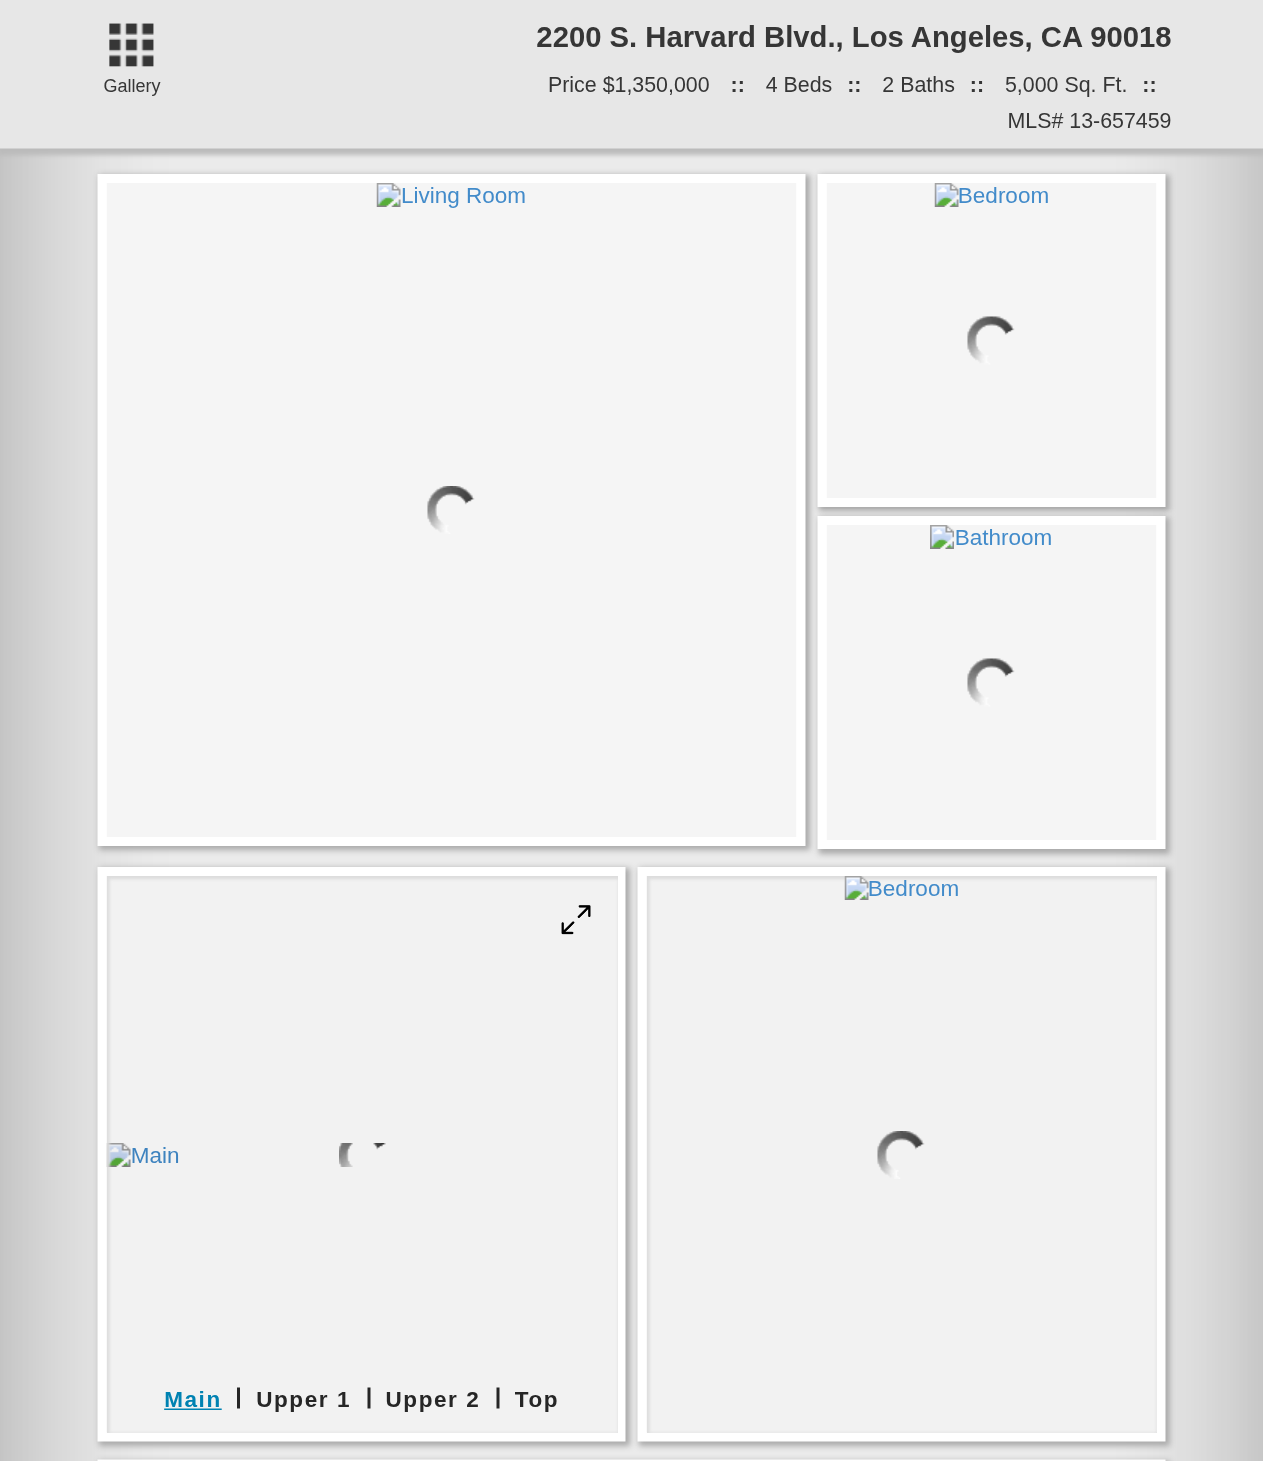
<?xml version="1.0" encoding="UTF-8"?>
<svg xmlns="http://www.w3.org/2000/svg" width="1263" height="1461">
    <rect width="100%" height="100%" fill="#FFFFFF"/>
    <image x="0" y="0" width="1263" height="1461" href="img_01.png"/>
</svg>
